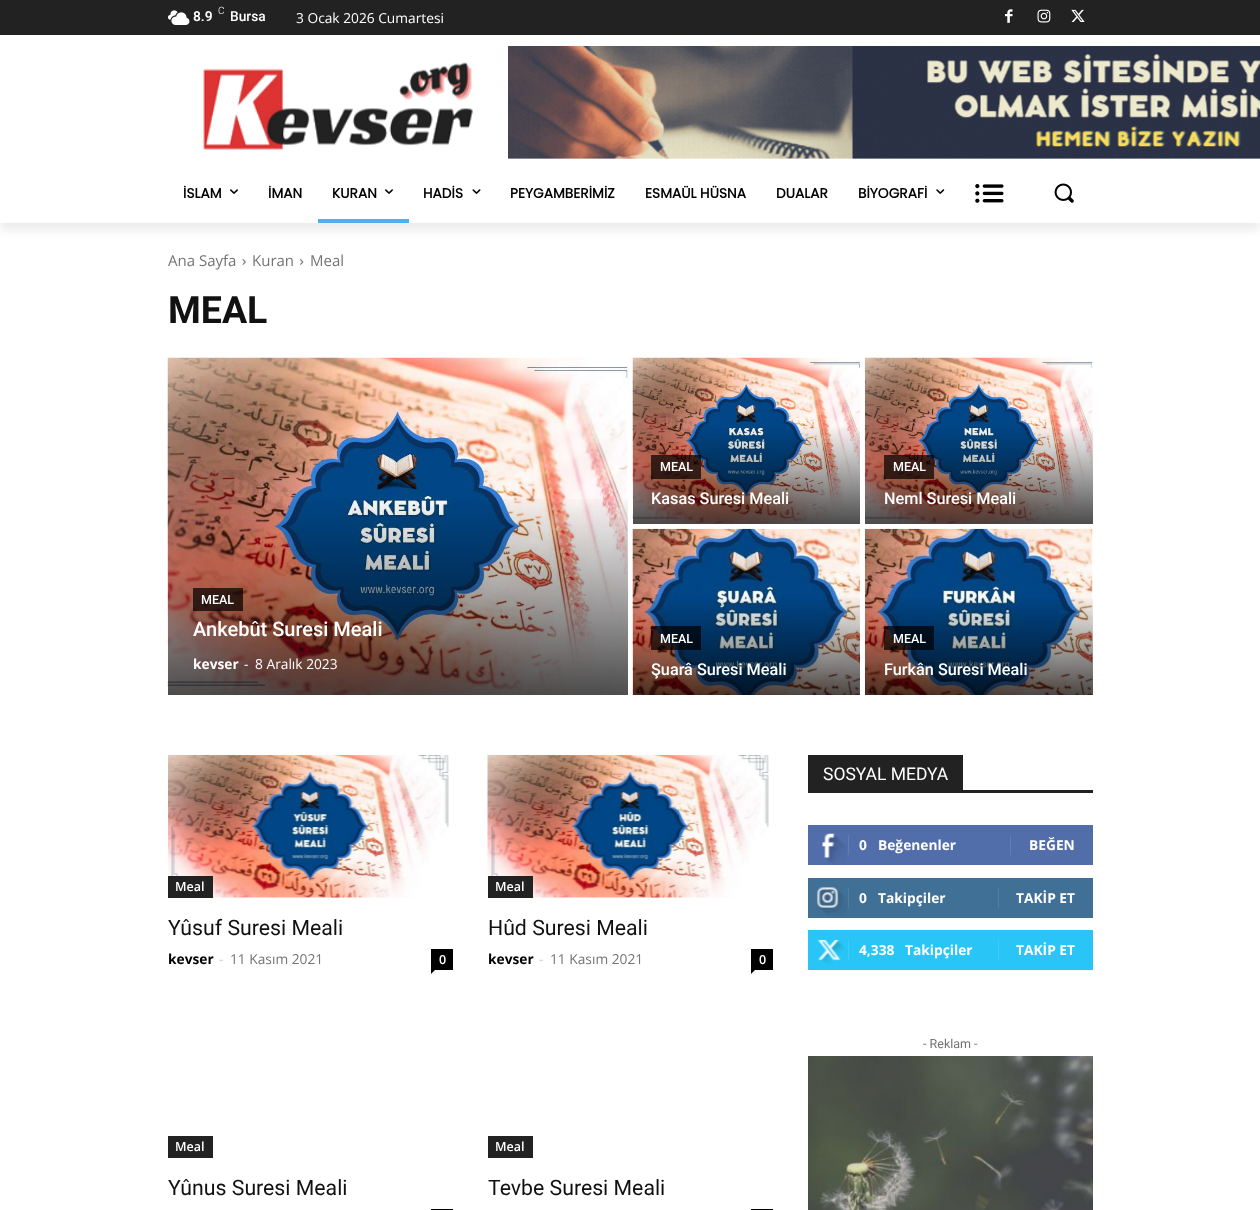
<?xml version="1.0" encoding="UTF-8"?>
<svg xmlns="http://www.w3.org/2000/svg" width="1260" height="1210">
    <defs>
        <clipPath id="clip1"><path d="M 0 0 H 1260 V 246 H 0 Z M 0 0 H 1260 V 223 H 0 Z" clip-rule="evenodd"/></clipPath>
        <filter id="blur1" x="-50%" y="-200%" width="200%" height="500%"><feGaussianBlur stdDeviation="5"/></filter>
        <linearGradient id="g1" gradientUnits="userSpaceOnUse" x1="398" y1="695" x2="398" y2="358"><stop offset="0" stop-color="#000000" stop-opacity="0.7"/><stop offset="0.6" stop-color="#000000" stop-opacity="0"/><stop offset="1" stop-color="#000000" stop-opacity="0"/></linearGradient>
        <linearGradient id="g2" gradientUnits="userSpaceOnUse" x1="746" y1="524" x2="746" y2="358"><stop offset="0" stop-color="#000000" stop-opacity="0.7"/><stop offset="0.6" stop-color="#000000" stop-opacity="0"/><stop offset="1" stop-color="#000000" stop-opacity="0"/></linearGradient>
        <linearGradient id="g3" gradientUnits="userSpaceOnUse" x1="979" y1="524" x2="979" y2="358"><stop offset="0" stop-color="#000000" stop-opacity="0.7"/><stop offset="0.6" stop-color="#000000" stop-opacity="0"/><stop offset="1" stop-color="#000000" stop-opacity="0"/></linearGradient>
        <linearGradient id="g4" gradientUnits="userSpaceOnUse" x1="979" y1="695" x2="979" y2="529"><stop offset="0" stop-color="#000000" stop-opacity="0.7"/><stop offset="0.6" stop-color="#000000" stop-opacity="0"/><stop offset="1" stop-color="#000000" stop-opacity="0"/></linearGradient>
    </defs>
    <rect width="100%" height="100%" fill="#FFFFFF"/>
    <rect x="0" y="0" width="1260" height="35" fill="#222222"/>
    <image x="168" y="10" width="22" height="15" href="img_01.png"/>
    <image x="1005" y="9" width="8" height="14" href="img_02.png"/>
    <image x="1037" y="9" width="14" height="14" href="img_03.png"/>
    <image x="1071" y="9" width="14" height="13" href="img_04.png"/>
    <image x="203" y="62" width="270" height="88" href="img_05.png"/>
    <image x="508" y="46" width="752" height="113" href="img_06.png"/>
    <g clip-path="url(#clip1)">
        <rect x="0" y="8" width="1260" height="222" fill="#000000" fill-opacity="0.08" filter="url(#blur1)"/>
    </g>
    <text x="193" y="21" font-family="Roboto" font-size="13.75" font-weight="600" fill="#FFFFFF">8.9</text>
    <text x="218" y="14" font-family="Roboto" font-size="10" font-weight="300" fill="#FFFFFF">C</text>
    <text x="230" y="21" font-family="Roboto" font-size="13.75" font-weight="500" fill="#FFFFFF">Bursa</text>
    <text x="296" y="23" font-family="Open Sans" font-size="13.75" fill="#FFFFFF">3 Ocak 2026 Cumartesi</text>
    <text x="183" y="198" font-family="Poppins" font-size="13.75" font-weight="700" fill="#000000">İSLAM</text>
    <image x="230" y="189" width="8" height="5" href="img_07.png"/>
    <text x="268" y="198" font-family="Poppins" font-size="13.75" font-weight="700" fill="#000000">İMAN</text>
    <text x="332" y="198" font-family="Poppins" font-size="13.75" font-weight="700" fill="#000000">KURAN</text>
    <image x="385" y="189" width="8" height="5" href="img_07.png"/>
    <rect x="318" y="219" width="91" height="4" fill="#4DB2EC"/>
    <text x="423" y="198" font-family="Poppins" font-size="13.75" font-weight="700" fill="#000000">HADİS</text>
    <image x="472" y="189" width="9" height="5" href="img_08.png"/>
    <text x="510" y="198" font-family="Poppins" font-size="13.75" font-weight="700" fill="#000000">PEYGAMBERİMİZ</text>
    <text x="645" y="198" font-family="Poppins" font-size="13.75" font-weight="700" fill="#000000">ESMAÜL HÜSNA</text>
    <text x="776" y="198" font-family="Poppins" font-size="13.75" font-weight="700" fill="#000000">DUALAR</text>
    <text x="858" y="198" font-family="Poppins" font-size="13.75" font-weight="700" fill="#000000">BİYOGRAFİ</text>
    <image x="936" y="189" width="9" height="5" href="img_09.png"/>
    <image x="975" y="184" width="29" height="19" href="img_10.png"/>
    <image x="1054" y="183" width="20" height="20" href="img_11.png"/>
    <text x="168" y="266" font-family="Open Sans" font-size="15" fill="#747474">Ana Sayfa</text>
    <image x="242" y="259" width="4" height="6" href="img_12.png"/>
    <text x="252" y="266" font-family="Open Sans" font-size="15" fill="#747474">Kuran</text>
    <image x="300" y="259" width="4" height="6" href="img_13.png"/>
    <text x="310" y="266" font-family="Open Sans" font-size="15" fill="#747474">Meal</text>
    <text x="168" y="323" font-family="Roboto" font-size="37.5" font-weight="700" fill="#111111">MEAL</text>
    <image x="167" y="357" width="461" height="338" href="img_14.png"/>
    <rect x="168" y="499" width="460" height="196" fill="url(#g1)"/>
    <rect x="193" y="588" width="50" height="23" fill="#000000" fill-opacity="0.7"/>
    <text x="201" y="604" font-family="Roboto" font-size="12.5" font-weight="500" fill="#FFFFFF">MEAL</text>
    <text x="193" y="636" font-family="Roboto" font-size="20" font-weight="500" fill="#FFFFFF">Ankebût Suresi Meali</text>
    <text x="193" y="669" font-family="Open Sans" font-size="13.75" font-weight="700" fill="#FFFFFF">kevser</text>
    <text x="244" y="669" font-family="Open Sans" font-size="13.75" fill="#FFFFFF">-</text>
    <text x="255" y="669" font-family="Open Sans" font-size="13.75" fill="#FFFFFF">8 Aralık 2023</text>
    <image x="632" y="357" width="228" height="167" href="img_15.png"/>
    <rect x="633" y="427" width="227" height="97" fill="url(#g2)"/>
    <rect x="651" y="455" width="50" height="24" fill="#000000" fill-opacity="0.7"/>
    <text x="660" y="471" font-family="Roboto" font-size="12.5" font-weight="500" fill="#FFFFFF">MEAL</text>
    <text x="651" y="504" font-family="Roboto" font-size="16.25" font-weight="500" fill="#FFFFFF">Kasas Suresi Meali</text>
    <image x="865" y="357" width="228" height="167" href="img_16.png"/>
    <rect x="865" y="427" width="228" height="97" fill="url(#g3)"/>
    <rect x="884" y="455" width="50" height="24" fill="#000000" fill-opacity="0.7"/>
    <text x="893" y="471" font-family="Roboto" font-size="12.5" font-weight="500" fill="#FFFFFF">MEAL</text>
    <text x="884" y="504" font-family="Roboto" font-size="16.25" font-weight="500" fill="#FFFFFF">Neml Suresi Meali</text>
    <image x="632" y="528" width="228" height="167" href="img_17.png"/>
    <rect x="651" y="626" width="50" height="24" fill="#000000" fill-opacity="0.7"/>
    <text x="660" y="643" font-family="Roboto" font-size="12.5" font-weight="500" fill="#FFFFFF">MEAL</text>
    <text x="651" y="675" font-family="Roboto" font-size="16.25" font-weight="500" fill="#FFFFFF">Şuarâ Suresi Meali</text>
    <image x="865" y="528" width="228" height="167" href="img_18.png"/>
    <rect x="865" y="598" width="228" height="97" fill="url(#g4)"/>
    <rect x="884" y="626" width="50" height="24" fill="#000000" fill-opacity="0.7"/>
    <text x="893" y="643" font-family="Roboto" font-size="12.5" font-weight="500" fill="#FFFFFF">MEAL</text>
    <text x="884" y="675" font-family="Roboto" font-size="16.25" font-weight="500" fill="#FFFFFF">Furkân Suresi Meali</text>
    <image x="168" y="755" width="281" height="143" href="img_19.png"/>
    <rect x="168" y="876" width="45" height="22" fill="#222222"/>
    <text x="175" y="891" font-family="Open Sans" font-size="12.5" font-weight="600" fill="#FFFFFF">Meal</text>
    <text x="168" y="935" font-family="Roboto" font-size="21.25" fill="#111111">Yûsuf Suresi Meali</text>
    <text x="168" y="964" font-family="Open Sans" font-size="13.75" font-weight="700" fill="#000000">kevser</text>
    <text x="219" y="964" font-family="Open Sans" font-size="13.75" fill="#CCCCCC">-</text>
    <text x="230" y="964" font-family="Open Sans" font-size="13.75" fill="#747474">11 Kasım 2021</text>
    <rect x="431" y="949" width="22" height="21" fill="#000000"/>
    <text x="439" y="964" font-family="Open Sans" font-size="12.5" font-weight="600" fill="#FFFFFF">0</text>
    <path d="M 431 970 H 435 L 431 974 Z" fill="#000000"/>
    <image x="487" y="755" width="282" height="143" href="img_20.png"/>
    <rect x="488" y="876" width="45" height="22" fill="#222222"/>
    <text x="495" y="891" font-family="Open Sans" font-size="12.5" font-weight="600" fill="#FFFFFF">Meal</text>
    <text x="488" y="935" font-family="Roboto" font-size="21.25" fill="#111111">Hûd Suresi Meali</text>
    <text x="488" y="964" font-family="Open Sans" font-size="13.75" font-weight="700" fill="#000000">kevser</text>
    <text x="539" y="964" font-family="Open Sans" font-size="13.75" fill="#CCCCCC">-</text>
    <text x="550" y="964" font-family="Open Sans" font-size="13.75" fill="#747474">11 Kasım 2021</text>
    <rect x="751" y="949" width="22" height="21" fill="#000000"/>
    <text x="759" y="964" font-family="Open Sans" font-size="12.5" font-weight="600" fill="#FFFFFF">0</text>
    <path d="M 751 970 H 755 L 751 974 Z" fill="#000000"/>
    <rect x="168" y="1136" width="45" height="22" fill="#222222"/>
    <text x="175" y="1151" font-family="Open Sans" font-size="12.5" font-weight="600" fill="#FFFFFF">Meal</text>
    <text x="168" y="1195" font-family="Roboto" font-size="21.25" fill="#111111">Yûnus Suresi Meali</text>
    <rect x="431" y="1209" width="22" height="1" fill="#000000"/>
    <rect x="488" y="1136" width="45" height="22" fill="#222222"/>
    <text x="495" y="1151" font-family="Open Sans" font-size="12.5" font-weight="600" fill="#FFFFFF">Meal</text>
    <text x="488" y="1195" font-family="Roboto" font-size="21.25" fill="#111111">Tevbe Suresi Meali</text>
    <rect x="751" y="1209" width="22" height="1" fill="#000000"/>
    <rect x="808" y="790" width="285" height="3" fill="#222222"/>
    <rect x="808" y="755" width="155" height="35" fill="#222222"/>
    <text x="823" y="780" font-family="Roboto" font-size="17.5" fill="#FFFFFF">SOSYAL MEDYA</text>
    <rect x="808" y="825" width="285" height="40" fill="#516EAB"/>
    <image x="821" y="833" width="26" height="32" href="img_21.png"/>
    <rect x="848" y="835" width="1" height="20" fill="#627DB3"/>
    <text x="859" y="850" font-family="Open Sans" font-size="13.75" font-weight="700" fill="#FFFFFF">0</text>
    <text x="878" y="850" font-family="Open Sans" font-size="13.75" font-weight="700" fill="#FFFFFF">Beğenenler</text>
    <rect x="1010" y="835" width="1" height="20" fill="#627DB3"/>
    <text x="1029" y="850" font-family="Open Sans" font-size="13.75" font-weight="700" fill="#FFFFFF">BEĞEN</text>
    <rect x="808" y="878" width="285" height="40" fill="#417096"/>
    <image x="816" y="887" width="31" height="29" href="img_22.png"/>
    <rect x="848" y="888" width="1" height="20" fill="#547EA1"/>
    <text x="859" y="903" font-family="Open Sans" font-size="13.75" font-weight="700" fill="#FFFFFF">0</text>
    <text x="878" y="903" font-family="Open Sans" font-size="13.75" font-weight="700" fill="#FFFFFF">Takipçiler</text>
    <rect x="998" y="888" width="1" height="20" fill="#547EA1"/>
    <text x="1016" y="903" font-family="Open Sans" font-size="13.75" font-weight="700" fill="#FFFFFF">TAKİP ET</text>
    <rect x="808" y="930" width="285" height="40" fill="#29C5F6"/>
    <image x="817" y="939" width="28" height="25" href="img_23.png"/>
    <rect x="848" y="940" width="1" height="20" fill="#3ECBF7"/>
    <text x="859" y="955" font-family="Open Sans" font-size="13.75" font-weight="700" fill="#FFFFFF">4,338</text>
    <text x="905" y="955" font-family="Open Sans" font-size="13.75" font-weight="700" fill="#FFFFFF">Takipçiler</text>
    <rect x="998" y="940" width="1" height="20" fill="#3ECBF7"/>
    <text x="1016" y="955" font-family="Open Sans" font-size="13.75" font-weight="700" fill="#FFFFFF">TAKİP ET</text>
    <text x="923" y="1048" font-family="Roboto" font-size="12.5" fill="#747474">- Reklam -</text>
    <image x="808" y="1056" width="285" height="154" href="img_24.png"/>
</svg>
